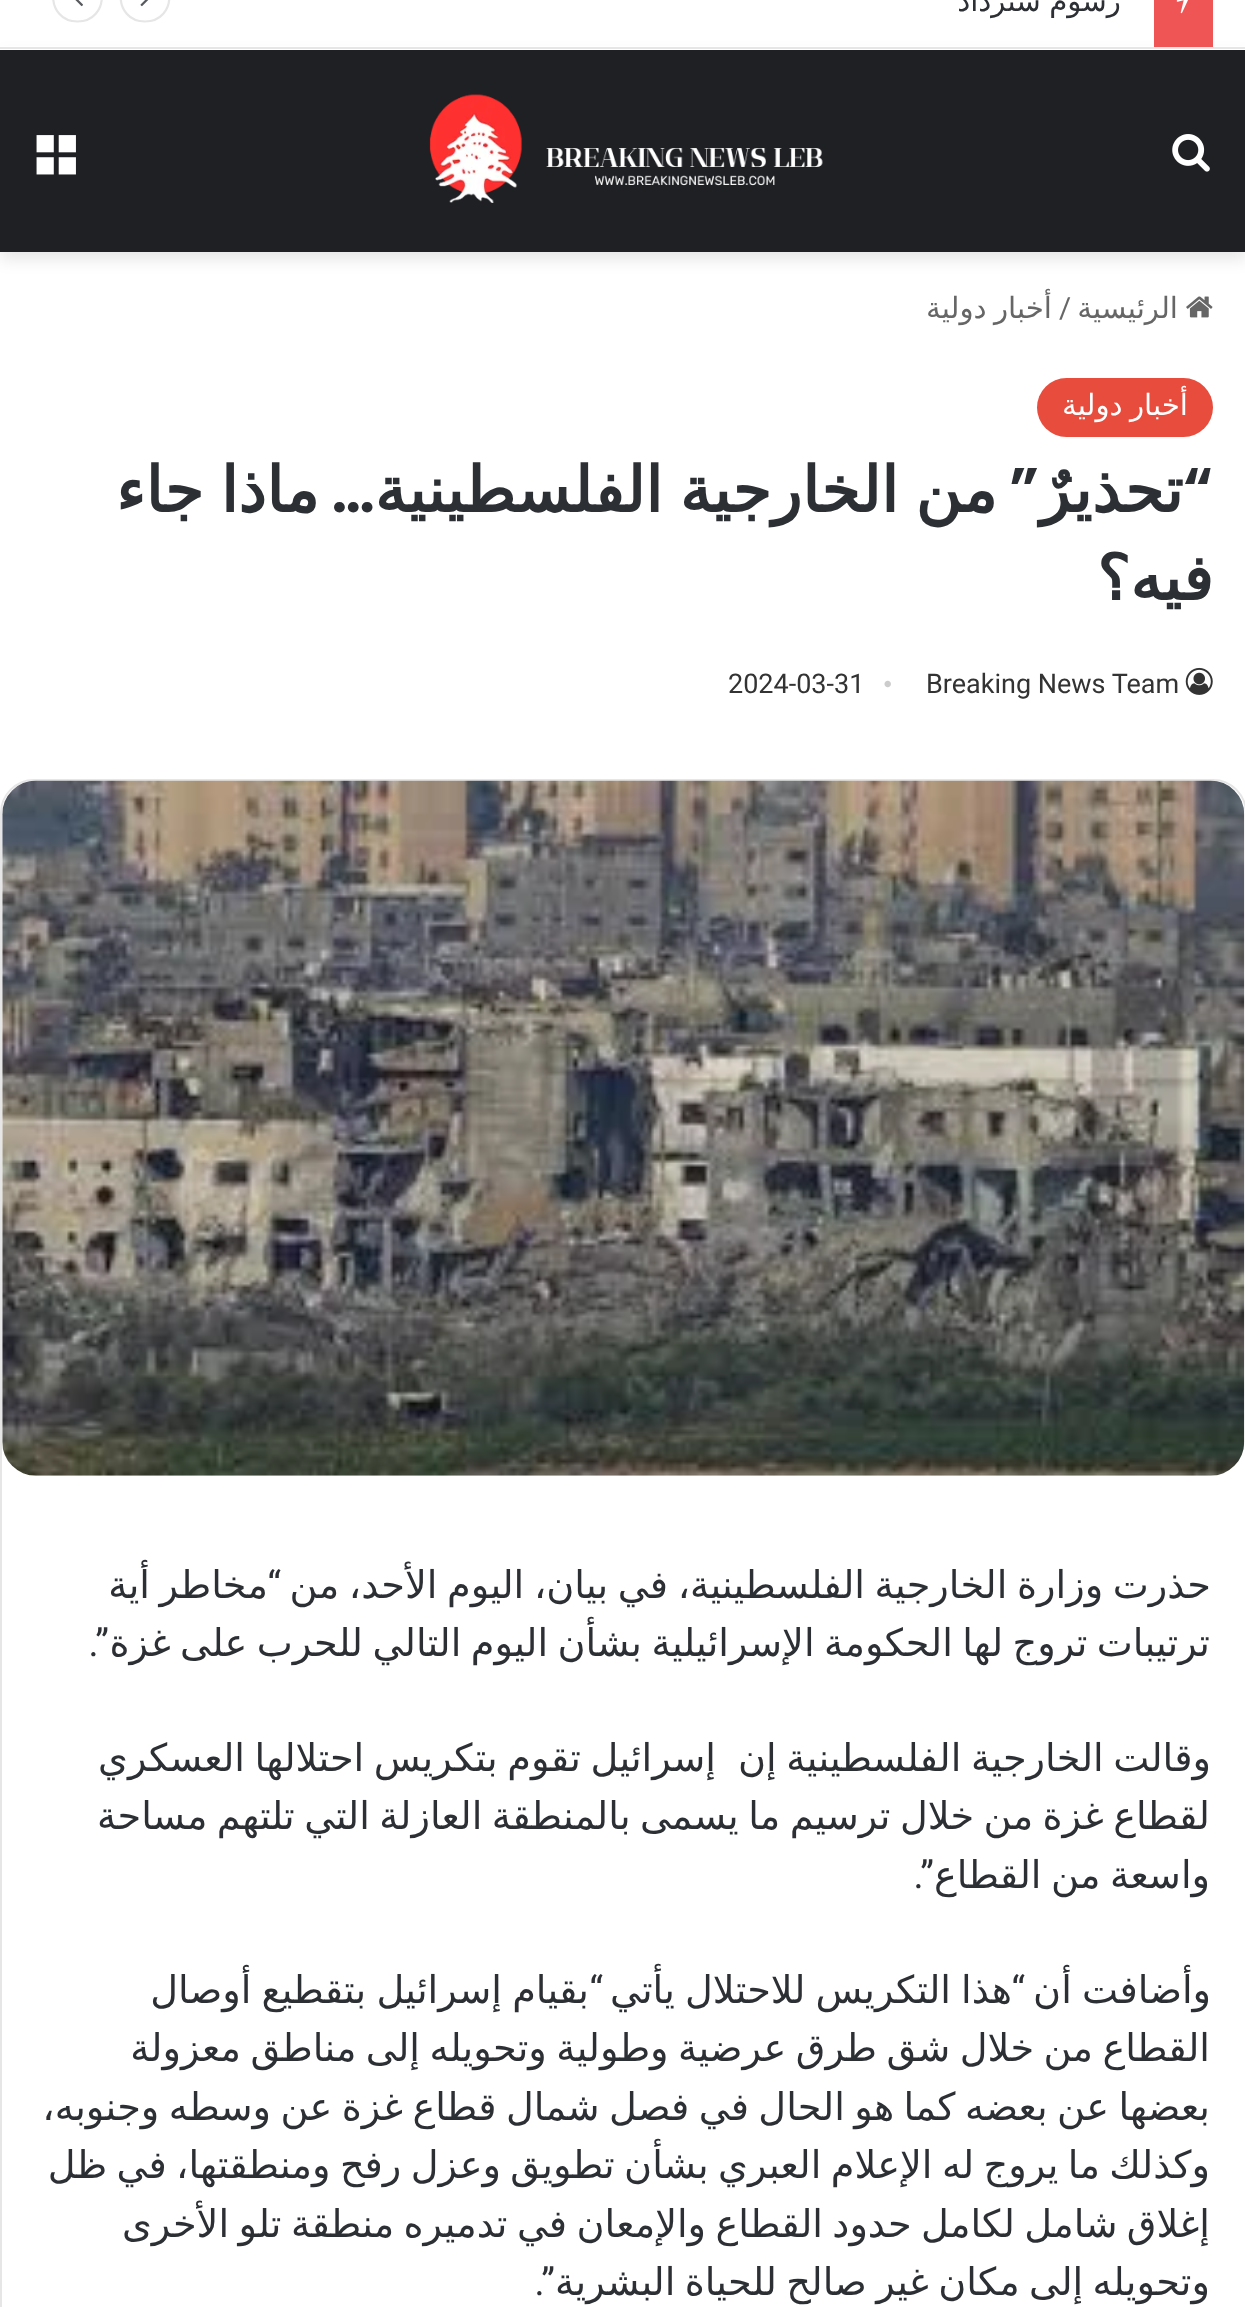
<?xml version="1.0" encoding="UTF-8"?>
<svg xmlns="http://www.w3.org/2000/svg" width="1245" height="2307">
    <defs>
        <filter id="blur1" x="-50%" y="-200%" width="200%" height="500%"><feGaussianBlur stdDeviation="8"/></filter>
    </defs>
    <rect width="100%" height="100%" fill="#FFFFFF"/>
    <rect x="0" y="56" width="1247" height="203" fill="#000000" fill-opacity="0.1" filter="url(#blur1)"/>
    <rect x="0" y="46" width="1245" height="4" fill="#FFFFFF"/>
    <rect x="0" y="47" width="1245" height="2" fill="#E6E6E6"/>
    <rect x="1154" y="0" width="59" height="47" fill="#F05555"/>
    <image x="1176" y="0" width="12" height="14" href="img_01.png"/>
    <text x="1121" y="11" word-spacing="-1" font-family="DejaVu Sans" font-size="29.25" direction="rtl" fill="#2C2F34">رسوم ستزداد</text>
    <path d="M 145 21.5 C 112.5 21.5 112.5 -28 145 -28 C 177.5 -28 177.5 21.5 145 21.5 Z" fill="none" stroke="#E6E6E6" stroke-width="2.2"/>
    <image x="140" y="0" width="9" height="7" href="img_02.png"/>
    <path d="M 77.5 21.5 C 45 21.5 45 -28 77.5 -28 C 110 -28 110 21.5 77.5 21.5 Z" fill="none" stroke="#E6E6E6" stroke-width="2.2"/>
    <image x="75" y="0" width="8" height="7" href="img_03.png"/>
    <rect x="0" y="50" width="1245" height="202" fill="#1F2024"/>
    <image x="1172" y="134" width="38" height="38" href="img_04.png"/>
    <image x="429" y="94" width="394" height="109" href="img_05.png"/>
    <image x="36" y="135" width="40" height="40" href="img_06.png"/>
    <image x="1186" y="296" width="27" height="22" href="img_07.png"/>
    <text x="1178" y="318" font-family="DejaVu Sans" font-size="29.25" direction="rtl" fill="#666666">الرئيسية</text>
    <text x="1059" y="318" font-family="Roboto" font-size="29.25" fill="#666666">/</text>
    <text x="1052" y="318" word-spacing="-2" font-family="DejaVu Sans" font-size="29.25" direction="rtl" fill="#666666">أخبار دولية</text>
    <rect x="1037" y="378" width="176" height="59" rx="29.5" fill="#E74C3C"/>
    <text x="1188" y="415" word-spacing="-2" font-family="DejaVu Sans" font-size="29.25" direction="rtl" fill="#FFFFFF">أخبار دولية</text>
    <text x="1213" y="512" font-family="Poppins" font-size="63" font-weight="600" direction="rtl" fill="#2C2F34">“</text>
    <text x="1039" y="512" font-family="Poppins" font-size="63" font-weight="600" direction="rtl" fill="#2C2F34">”</text>
    <text x="1183" y="512" font-family="DejaVu Sans" font-size="63" font-weight="700" direction="rtl" fill="#2C2F34">تحذيرٌ</text>
    <text x="997" y="512" word-spacing="-3" font-family="DejaVu Sans" font-size="63" font-weight="700" direction="rtl" fill="#2C2F34">من الخارجية الفلسطينية</text>
    <text x="375" y="512" font-family="Poppins" font-size="63" font-weight="600" direction="rtl" fill="#2C2F34">…</text>
    <text x="319" y="512" word-spacing="-3" font-family="DejaVu Sans" font-size="63" font-weight="700" direction="rtl" fill="#2C2F34">ماذا جاء</text>
    <text x="1213" y="600" font-family="DejaVu Sans" font-size="63" font-weight="700" direction="rtl" fill="#2C2F34">فيه؟</text>
    <image x="1185" y="667" width="28" height="28" href="img_08.png"/>
    <text x="926" y="693" font-family="Roboto" font-size="27" fill="#333333">Breaking News Team</text>
    <text x="883" y="693" font-family="Liberation Serif" font-size="27" fill="#CCCCCC">•</text>
    <text x="728" y="693" font-family="Roboto" font-size="27" fill="#333333">2024-03-31</text>
    <rect x="1" y="780" width="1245" height="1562" rx="33" fill="none" stroke="#E6E6E6" stroke-width="2"/>
    <image x="2" y="780" width="1243" height="696" href="img_09.png"/>
    <text x="1211" y="1598" word-spacing="-2.5" font-family="DejaVu Sans" font-size="38.25" direction="rtl" fill="#2C2F34">حذرت وزارة الخارجية الفلسطينية، في بيان، اليوم الأحد، من</text>
    <text x="281" y="1598" font-family="Roboto" font-size="38.25" direction="rtl" fill="#2C2F34">“</text>
    <text x="268" y="1598" word-spacing="-2.5" font-family="DejaVu Sans" font-size="38.25" direction="rtl" fill="#2C2F34">مخاطر أية</text>
    <text x="1210" y="1656" word-spacing="-2.75" font-family="DejaVu Sans" font-size="38.25" direction="rtl" fill="#2C2F34">ترتيبات تروج لها الحكومة الإسرائيلية بشأن اليوم التالي للحرب على غزة</text>
    <text x="109" y="1656" font-family="Roboto" font-size="38.25" direction="rtl" fill="#2C2F34">”.</text>
    <text x="1211" y="1771" word-spacing="-2.5" font-family="DejaVu Sans" font-size="38.25" direction="rtl" fill="#2C2F34">وقالت الخارجية الفلسطينية إن</text>
    <text x="716" y="1771" word-spacing="-2.5" font-family="DejaVu Sans" font-size="38.25" direction="rtl" fill="#2C2F34">إسرائيل تقوم بتكريس احتلالها العسكري</text>
    <text font-family="DejaVu Sans" font-size="38.25" direction="rtl" fill="#2C2F34">
        <tspan x="1210" y="1829" word-spacing="-2.75">لقطاع غزة من خلال ترسيم ما يسمى بالمنطقة العازلة التي تلتهم مساحة</tspan>
        <tspan x="1210" y="1888" word-spacing="-2.75">واسعة من القطاع</tspan>
    </text>
    <text x="934" y="1888" font-family="Roboto" font-size="38.25" direction="rtl" fill="#2C2F34">”.</text>
    <text x="1211" y="2003" word-spacing="-2" font-family="DejaVu Sans" font-size="38.25" direction="rtl" fill="#2C2F34">وأضافت أن</text>
    <text x="1012" y="2003" word-spacing="-2" font-family="DejaVu Sans" font-size="38.25" direction="rtl" fill="#2C2F34">هذا التكريس للاحتلال يأتي</text>
    <text x="1025" y="2003" font-family="Roboto" font-size="38.25" direction="rtl" fill="#2C2F34">“</text>
    <text x="589" y="2003" word-spacing="-2" font-family="DejaVu Sans" font-size="38.25" direction="rtl" fill="#2C2F34">بقيام إسرائيل بتقطيع أوصال</text>
    <text x="603" y="2003" font-family="Roboto" font-size="38.25" direction="rtl" fill="#2C2F34">“</text>
    <text font-family="DejaVu Sans" font-size="38.25" direction="rtl" fill="#2C2F34">
        <tspan x="1210" y="2061" word-spacing="-2.75">القطاع من خلال شق طرق عرضية وطولية وتحويله إلى مناطق معزولة</tspan>
        <tspan x="1210" y="2120" word-spacing="-2.75">بعضها عن بعضه كما هو الحال في فصل شمال قطاع غزة عن وسطه وجنوبه،</tspan>
        <tspan x="1210" y="2178" word-spacing="-2.75">وكذلك ما يروج له الإعلام العبري بشأن تطويق وعزل رفح ومنطقتها، في ظل</tspan>
        <tspan x="1210" y="2237" word-spacing="-2.75">إغلاق شامل لكامل حدود القطاع والإمعان في تدميره منطقة تلو الأخرى</tspan>
        <tspan x="1210" y="2295" word-spacing="-2.75">وتحويله إلى مكان غير صالح للحياة البشرية</tspan>
    </text>
    <text x="555" y="2295" font-family="Roboto" font-size="38.25" direction="rtl" fill="#2C2F34">”.</text>
</svg>
